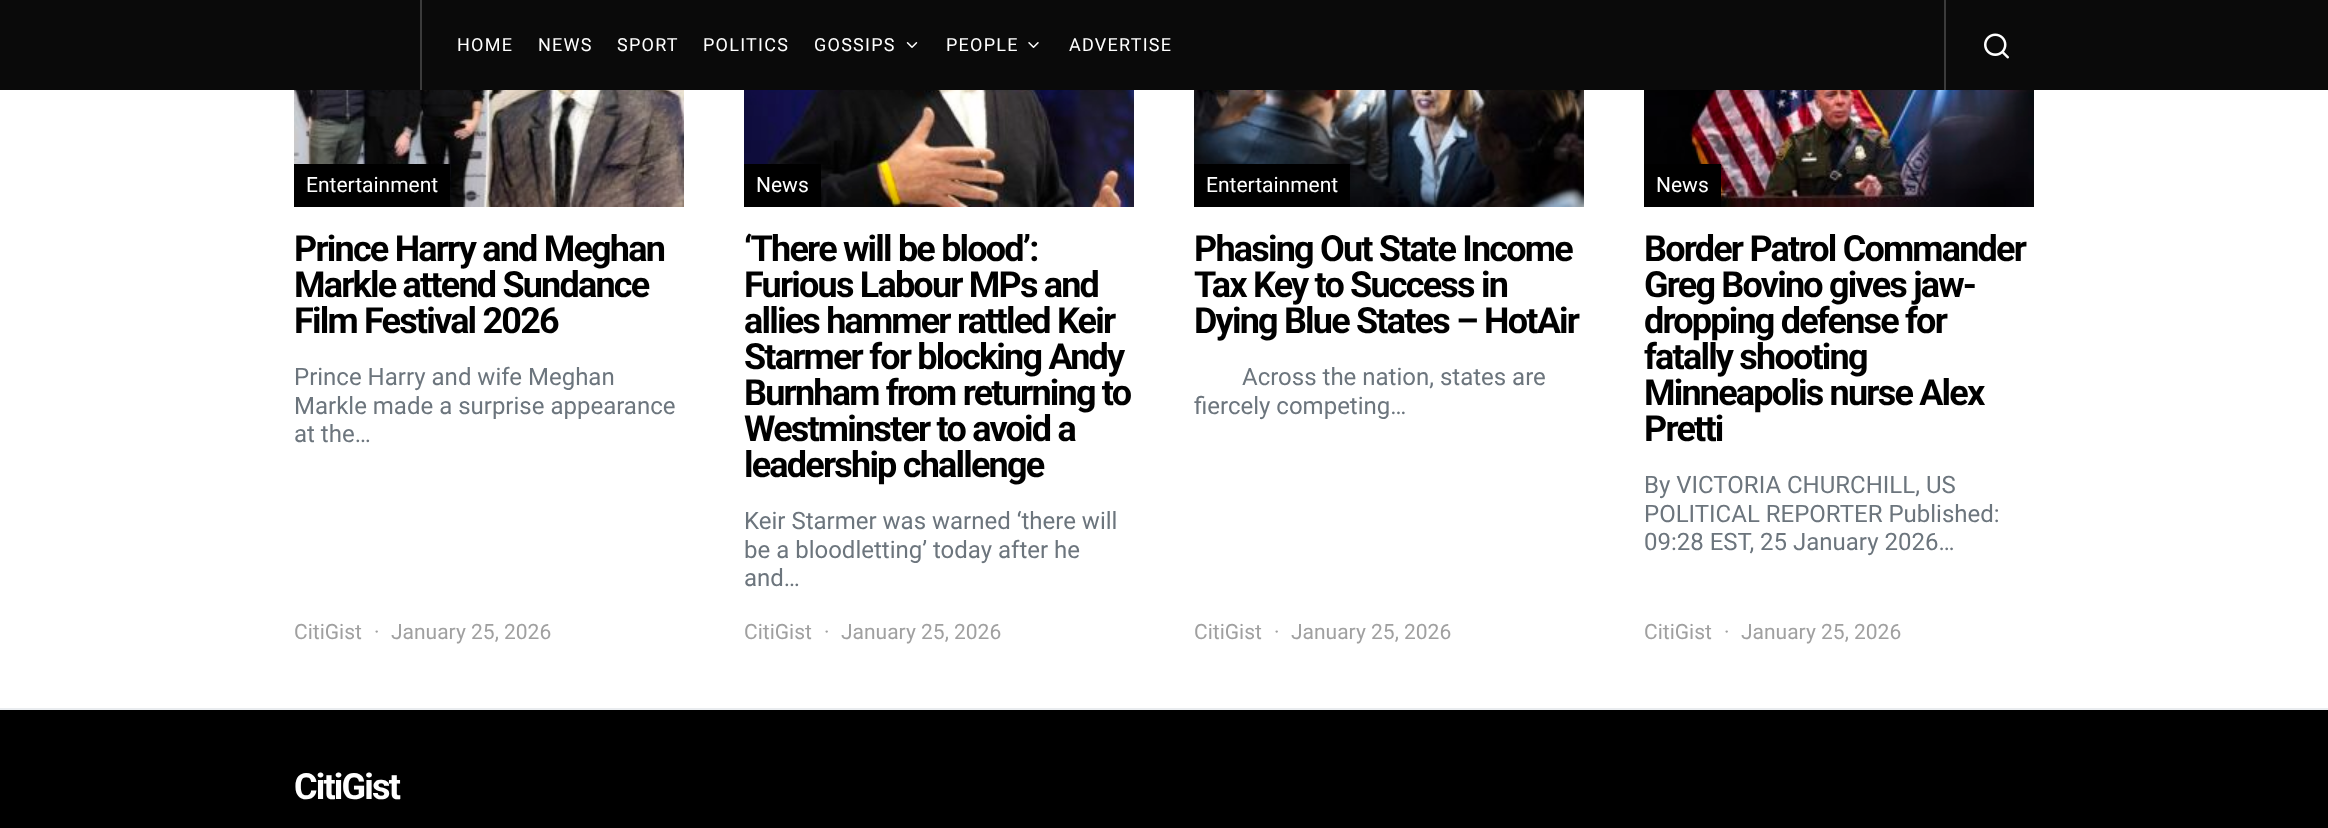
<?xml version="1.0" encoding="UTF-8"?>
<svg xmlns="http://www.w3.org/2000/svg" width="2328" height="828">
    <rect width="100%" height="100%" fill="#FFFFFF"/>
    <rect x="0" y="0" width="2328" height="90" fill="#0A0A0A"/>
    <rect x="420" y="0" width="2" height="90" fill="#3B3B3B"/>
    <text x="457" y="51" font-family="Roboto" font-size="18" letter-spacing="1.25" fill="#FFFFFF">HOME</text>
    <text x="538" y="51" font-family="Roboto" font-size="18" letter-spacing="1.25" fill="#FFFFFF">NEWS</text>
    <text x="617" y="51" font-family="Roboto" font-size="18" letter-spacing="1.25" fill="#FFFFFF">SPORT</text>
    <text x="703" y="51" font-family="Roboto" font-size="18" letter-spacing="1.25" fill="#FFFFFF">POLITICS</text>
    <text x="814" y="51" font-family="Roboto" font-size="18" letter-spacing="1.25" fill="#FFFFFF">GOSSIPS</text>
    <image x="906" y="42" width="12" height="6" href="img_01.png"/>
    <text x="946" y="51" font-family="Roboto" font-size="18" letter-spacing="1.25" fill="#FFFFFF">PEOPLE</text>
    <image x="1028" y="42" width="11" height="6" href="img_02.png"/>
    <text x="1069" y="51" font-family="Roboto" font-size="18" letter-spacing="1.25" fill="#FFFFFF">ADVERTISE</text>
    <rect x="1944" y="0" width="2" height="90" fill="#3B3B3B"/>
    <image x="1984" y="33" width="25" height="26" href="img_03.png"/>
    <image x="294" y="90" width="390" height="117" href="img_04.png"/>
    <rect x="294" y="164" width="156" height="43" fill="#000000"/>
    <text x="306" y="192" font-family="Roboto" font-size="21" fill="#FFFFFF">Entertainment</text>
    <text font-family="Roboto" font-size="36" font-weight="700" letter-spacing="-1.8" fill="#000000">
        <tspan x="294" y="261">Prince Harry and Meghan</tspan>
        <tspan x="294" y="297">Markle attend Sundance</tspan>
        <tspan x="294" y="333">Film Festival 2026</tspan>
    </text>
    <text font-family="Roboto" font-size="24" fill="#6C757D">
        <tspan x="294" y="385">Prince Harry and wife Meghan</tspan>
        <tspan x="294" y="414">Markle made a surprise appearance</tspan>
        <tspan x="294" y="442">at the…</tspan>
    </text>
    <text x="294" y="639" font-family="Roboto" font-size="21" fill="#A0A0A0">CitiGist</text>
    <text x="374" y="639" font-family="Roboto" font-size="21" fill="#A0A0A0">·</text>
    <text x="391" y="639" font-family="Roboto" font-size="21" fill="#A0A0A0">January 25, 2026</text>
    <image x="744" y="90" width="390" height="117" href="img_05.png"/>
    <rect x="744" y="164" width="77" height="43" fill="#000000"/>
    <text x="756" y="192" font-family="Roboto" font-size="21" fill="#FFFFFF">News</text>
    <text font-family="Roboto" font-size="36" font-weight="700" letter-spacing="-1.8" fill="#000000">
        <tspan x="744" y="261">‘There will be blood’:</tspan>
        <tspan x="744" y="297">Furious Labour MPs and</tspan>
        <tspan x="744" y="333">allies hammer rattled Keir</tspan>
        <tspan x="744" y="369">Starmer for blocking Andy</tspan>
        <tspan x="744" y="405">Burnham from returning to</tspan>
        <tspan x="744" y="441">Westminster to avoid a</tspan>
        <tspan x="744" y="477">leadership challenge</tspan>
    </text>
    <text font-family="Roboto" font-size="24" fill="#6C757D">
        <tspan x="744" y="529">Keir Starmer was warned ‘there will</tspan>
        <tspan x="744" y="558">be a bloodletting’ today after he</tspan>
        <tspan x="744" y="586">and…</tspan>
    </text>
    <text x="744" y="639" font-family="Roboto" font-size="21" fill="#A0A0A0">CitiGist</text>
    <text x="824" y="639" font-family="Roboto" font-size="21" fill="#A0A0A0">·</text>
    <text x="841" y="639" font-family="Roboto" font-size="21" fill="#A0A0A0">January 25, 2026</text>
    <image x="1194" y="90" width="390" height="117" href="img_06.png"/>
    <rect x="1194" y="164" width="156" height="43" fill="#000000"/>
    <text x="1206" y="192" font-family="Roboto" font-size="21" fill="#FFFFFF">Entertainment</text>
    <text font-family="Roboto" font-size="36" font-weight="700" letter-spacing="-1.8" fill="#000000">
        <tspan x="1194" y="261">Phasing Out State Income</tspan>
        <tspan x="1194" y="297">Tax Key to Success in</tspan>
        <tspan x="1194" y="333">Dying Blue States – HotAir</tspan>
    </text>
    <text x="1242" y="385" font-family="Roboto" font-size="24" fill="#6C757D">Across the nation, states are</text>
    <text x="1194" y="414" font-family="Roboto" font-size="24" fill="#6C757D">fiercely competing…</text>
    <text x="1194" y="639" font-family="Roboto" font-size="21" fill="#A0A0A0">CitiGist</text>
    <text x="1274" y="639" font-family="Roboto" font-size="21" fill="#A0A0A0">·</text>
    <text x="1291" y="639" font-family="Roboto" font-size="21" fill="#A0A0A0">January 25, 2026</text>
    <image x="1644" y="90" width="390" height="117" href="img_07.png"/>
    <rect x="1644" y="164" width="77" height="43" fill="#000000"/>
    <text x="1656" y="192" font-family="Roboto" font-size="21" fill="#FFFFFF">News</text>
    <text font-family="Roboto" font-size="36" font-weight="700" letter-spacing="-1.8" fill="#000000">
        <tspan x="1644" y="261">Border Patrol Commander</tspan>
        <tspan x="1644" y="297">Greg Bovino gives jaw-</tspan>
        <tspan x="1644" y="333">dropping defense for</tspan>
        <tspan x="1644" y="369">fatally shooting</tspan>
        <tspan x="1644" y="405">Minneapolis nurse Alex</tspan>
        <tspan x="1644" y="441">Pretti</tspan>
    </text>
    <text font-family="Roboto" font-size="24" fill="#6C757D">
        <tspan x="1644" y="493">By VICTORIA CHURCHILL, US</tspan>
        <tspan x="1644" y="522">POLITICAL REPORTER Published:</tspan>
        <tspan x="1644" y="550">09:28 EST, 25 January 2026…</tspan>
    </text>
    <text x="1644" y="639" font-family="Roboto" font-size="21" fill="#A0A0A0">CitiGist</text>
    <text x="1724" y="639" font-family="Roboto" font-size="21" fill="#A0A0A0">·</text>
    <text x="1741" y="639" font-family="Roboto" font-size="21" fill="#A0A0A0">January 25, 2026</text>
    <rect x="0" y="710" width="2328" height="118" fill="#000000"/>
    <rect x="0" y="708" width="2328" height="2" fill="#E9ECEF"/>
    <text x="294" y="799" font-family="Roboto" font-size="36" font-weight="700" letter-spacing="-1.8" fill="#FFFFFF">CitiGist</text>
</svg>
